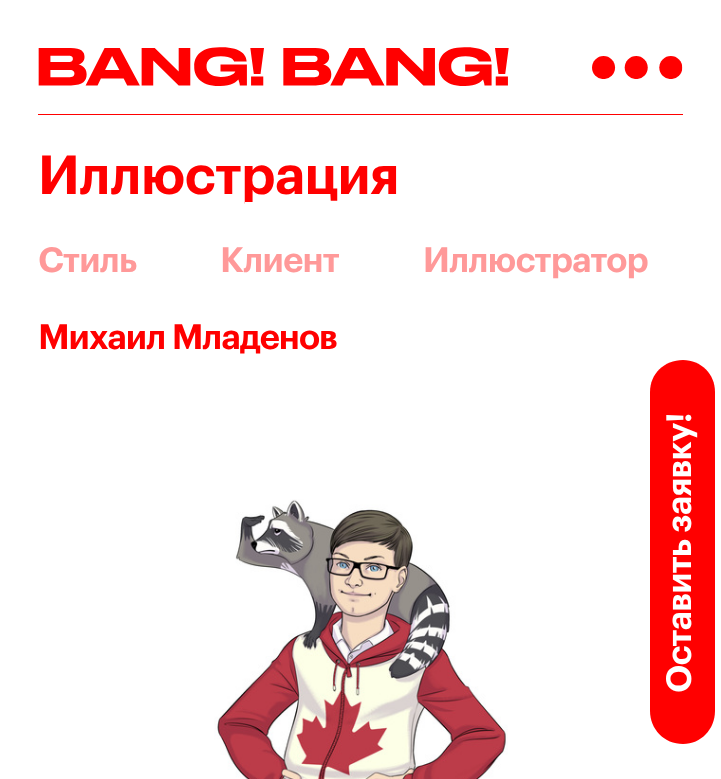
<?xml version="1.0" encoding="UTF-8"?>
<svg xmlns="http://www.w3.org/2000/svg" width="721" height="779">
    <rect width="100%" height="100%" fill="#FFFFFF"/>
    <image x="38" y="47" width="471" height="39" href="img_01.png"/>
    <image x="592" y="56" width="91" height="23" href="img_02.png"/>
    <rect x="38" y="114" width="645" height="1" fill="#FF0000"/>
    <text x="38" y="194" font-family="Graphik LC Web" font-size="53.75" font-weight="600" letter-spacing="-0.5" fill="#FF0000">Иллюстрация</text>
    <rect x="245" y="202" width="9" height="2" fill="#FFFFFF"/>
    <text x="38" y="272" font-family="Graphik LC Web" font-size="34.5" font-weight="600" letter-spacing="-0.75" fill="#FF9999">Стиль</text>
    <text x="220" y="272" font-family="Graphik LC Web" font-size="34.5" font-weight="600" letter-spacing="-0.75" fill="#FF9999">Клиент</text>
    <text x="423" y="272" font-family="Graphik LC Web" font-size="34.5" font-weight="600" letter-spacing="-0.75" fill="#FF9999">Иллюстратор</text>
    <path d="M 650 711 V 392 C 650 374 664 360 683 360 C 701 360 715 374 715 392 V 711 C 715 729 701 744 683 744 C 664 744 650 729 650 711 Z" fill="#FF0000"/>
    <text x="691" y="693" transform="rotate(-90 691 693)" font-family="Graphik LC Web" font-size="34.5" font-weight="600" letter-spacing="-0.75" fill="#FFFFFF">Оставить заявку!</text>
    <text x="38" y="349" font-family="Graphik LC Web" font-size="34.5" font-weight="600" letter-spacing="-1" fill="#FF0000">Михаил Младенов</text>
    <image x="214" y="499" width="294" height="280" href="img_03.png"/>
</svg>
